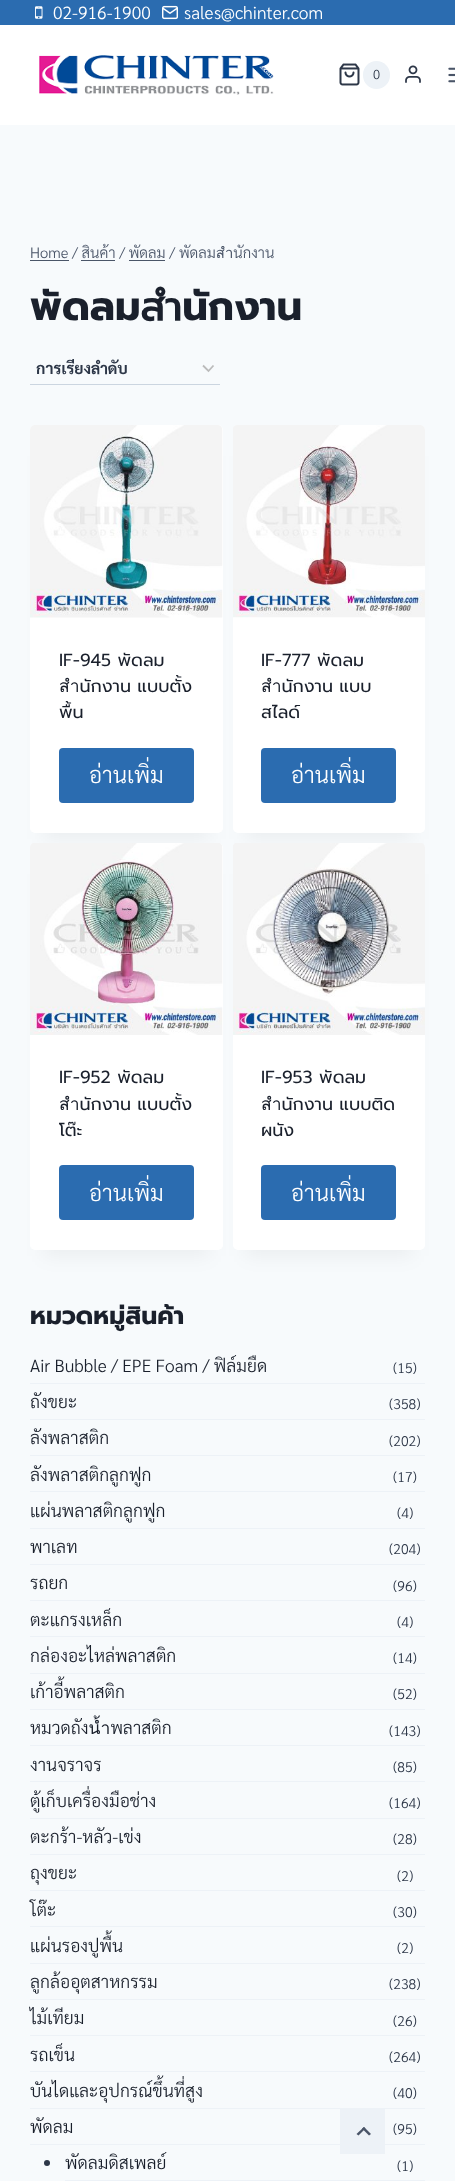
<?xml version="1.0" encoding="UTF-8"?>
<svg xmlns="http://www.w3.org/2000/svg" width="455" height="2181">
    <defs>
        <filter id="blur1" x="-50%" y="-200%" width="200%" height="500%"><feGaussianBlur stdDeviation="9.5"/></filter>
    </defs>
    <rect width="100%" height="100%" fill="#F7FAFC"/>
    <rect x="0" y="25" width="455" height="100" fill="#FFFFFF"/>
    <rect x="0" y="0" width="455" height="25" fill="#2B6CB0"/>
    <image x="35" y="6" width="8" height="13" href="img_01.png"/>
    <text x="53" y="19" font-family="Sarabun" font-size="17.5" font-weight="300" fill="#FFFFFF">02-916-1900</text>
    <image x="162" y="5" width="16" height="15" href="img_02.png"/>
    <text x="184" y="19" font-family="Sarabun" font-size="17.5" font-weight="300" fill="#FFFFFF">sales@chinter.com</text>
    <image x="39" y="55" width="235" height="40" href="img_03.png"/>
    <image x="339" y="63" width="21" height="23" href="img_04.png"/>
    <rect x="363" y="61" width="27" height="28" rx="13.5" fill="#EDF2F7"/>
    <text x="373" y="79" font-family="Sarabun" font-size="13" font-weight="300" fill="#2D3748">0</text>
    <image x="405" y="65" width="16" height="18" href="img_05.png"/>
    <image x="448" y="67" width="7" height="16" href="img_06.png"/>
    <text x="30" y="258" font-family="Sarabun" font-size="14.9" font-weight="300" fill="#4A5568">Home / สินค้า / พัดลม / พัดลมสำนักงาน</text>
    <rect x="30" y="260" width="39" height="1" fill="#4A5568"/>
    <rect x="81" y="260" width="34" height="1" fill="#4A5568"/>
    <rect x="129" y="260" width="36" height="1" fill="#4A5568"/>
    <text x="30" y="320" font-family="Prompt" font-size="40" font-weight="700" fill="#1A202C">พัดลมสำนักงาน</text>
    <path d="M 203 365.5 L 208.5 371 L 213.5 365.5" fill="none" stroke="#BBBBBB" stroke-width="1.8"/>
    <rect x="30" y="384" width="190" height="1" fill="#CBD5E0"/>
    <text x="36" y="374" font-family="Sarabun" font-size="15.75" font-weight="700" fill="#2D3748">การเรียงลำดับ</text>
    <rect x="43" y="456" width="167" height="383" fill="#000000" fill-opacity="0.05" filter="url(#blur1)"/>
    <rect x="30" y="425" width="193" height="408" rx="5" fill="#FFFFFF"/>
    <image x="30" y="425" width="193" height="193" href="img_07.png"/>
    <text font-family="Prompt" font-size="17.5" fill="#1A202C">
        <tspan x="59" y="666">IF-945 พัดลม</tspan>
        <tspan x="59" y="692">สำนักงาน แบบตั้ง</tspan>
        <tspan x="59" y="718">พื้น</tspan>
    </text>
    <rect x="59" y="748" width="135" height="55" rx="4" fill="#2B6CB0"/>
    <text x="89" y="783" font-family="Sarabun" font-size="22.5" font-weight="300" fill="#FFFFFF">อ่านเพิ่ม</text>
    <rect x="245" y="456" width="168" height="383" fill="#000000" fill-opacity="0.05" filter="url(#blur1)"/>
    <rect x="233" y="425" width="192" height="408" rx="5" fill="#FFFFFF"/>
    <image x="233" y="425" width="192" height="193" href="img_08.png"/>
    <text font-family="Prompt" font-size="17.5" fill="#1A202C">
        <tspan x="261" y="666">IF-777 พัดลม</tspan>
        <tspan x="261" y="692">สำนักงาน แบบ</tspan>
        <tspan x="261" y="718">สไลด์</tspan>
    </text>
    <rect x="261" y="748" width="135" height="55" rx="4" fill="#2B6CB0"/>
    <text x="291" y="783" font-family="Sarabun" font-size="22.5" font-weight="300" fill="#FFFFFF">อ่านเพิ่ม</text>
    <rect x="43" y="874" width="167" height="382" fill="#000000" fill-opacity="0.05" filter="url(#blur1)"/>
    <rect x="30" y="843" width="193" height="407" rx="5" fill="#FFFFFF"/>
    <image x="30" y="843" width="193" height="192" href="img_09.png"/>
    <text font-family="Prompt" font-size="17.5" fill="#1A202C">
        <tspan x="59" y="1083">IF-952 พัดลม</tspan>
        <tspan x="59" y="1110">สำนักงาน แบบตั้ง</tspan>
        <tspan x="59" y="1136">โต๊ะ</tspan>
    </text>
    <rect x="59" y="1165" width="135" height="55" rx="4" fill="#2B6CB0"/>
    <text x="89" y="1201" font-family="Sarabun" font-size="22.5" font-weight="300" fill="#FFFFFF">อ่านเพิ่ม</text>
    <rect x="245" y="874" width="168" height="382" fill="#000000" fill-opacity="0.05" filter="url(#blur1)"/>
    <rect x="233" y="843" width="192" height="407" rx="5" fill="#FFFFFF"/>
    <image x="233" y="843" width="192" height="192" href="img_10.png"/>
    <text font-family="Prompt" font-size="17.5" fill="#1A202C">
        <tspan x="261" y="1083">IF-953 พัดลม</tspan>
        <tspan x="261" y="1110">สำนักงาน แบบติด</tspan>
        <tspan x="261" y="1136">ผนัง</tspan>
    </text>
    <rect x="261" y="1165" width="135" height="55" rx="4" fill="#2B6CB0"/>
    <text x="291" y="1201" font-family="Sarabun" font-size="22.5" font-weight="300" fill="#FFFFFF">อ่านเพิ่ม</text>
    <text x="30" y="1324" font-family="Prompt" font-size="25" font-weight="700" fill="#1A202C">หมวดหมู่สินค้า</text>
    <rect x="30" y="1383" width="395" height="1" fill="#EDF2F7"/>
    <text x="30" y="1372" font-family="Sarabun" font-size="17.5" font-weight="300" fill="#1A202C">Air Bubble / EPE Foam / ฟิล์มยืด</text>
    <text x="393" y="1373" font-family="Sarabun" font-size="14" font-weight="300" fill="#2D3748">(15)</text>
    <rect x="30" y="1419" width="395" height="1" fill="#EDF2F7"/>
    <text x="30" y="1408" font-family="Sarabun" font-size="17.5" font-weight="300" fill="#1A202C">ถังขยะ</text>
    <text x="389" y="1409" font-family="Sarabun" font-size="14" font-weight="300" fill="#2D3748">(358)</text>
    <rect x="30" y="1455" width="395" height="1" fill="#EDF2F7"/>
    <text x="30" y="1444" font-family="Sarabun" font-size="17.5" font-weight="300" fill="#1A202C">ลังพลาสติก</text>
    <text x="389" y="1446" font-family="Sarabun" font-size="14" font-weight="300" fill="#2D3748">(202)</text>
    <rect x="30" y="1491" width="395" height="1" fill="#EDF2F7"/>
    <text x="30" y="1481" font-family="Sarabun" font-size="17.5" font-weight="300" fill="#1A202C">ลังพลาสติกลูกฟูก</text>
    <text x="393" y="1482" font-family="Sarabun" font-size="14" font-weight="300" fill="#2D3748">(17)</text>
    <rect x="30" y="1528" width="395" height="1" fill="#EDF2F7"/>
    <text x="30" y="1517" font-family="Sarabun" font-size="17.5" font-weight="300" fill="#1A202C">แผ่นพลาสติกลูกฟูก</text>
    <text x="397" y="1518" font-family="Sarabun" font-size="14" font-weight="300" fill="#2D3748">(4)</text>
    <rect x="30" y="1564" width="395" height="1" fill="#EDF2F7"/>
    <text x="30" y="1553" font-family="Sarabun" font-size="17.5" font-weight="300" fill="#1A202C">พาเลท</text>
    <text x="389" y="1554" font-family="Sarabun" font-size="14" font-weight="300" fill="#2D3748">(204)</text>
    <rect x="30" y="1600" width="395" height="1" fill="#EDF2F7"/>
    <text x="30" y="1589" font-family="Sarabun" font-size="17.5" font-weight="300" fill="#1A202C">รถยก</text>
    <text x="393" y="1591" font-family="Sarabun" font-size="14" font-weight="300" fill="#2D3748">(96)</text>
    <rect x="30" y="1636" width="395" height="1" fill="#EDF2F7"/>
    <text x="30" y="1626" font-family="Sarabun" font-size="17.5" font-weight="300" fill="#1A202C">ตะแกรงเหล็ก</text>
    <text x="397" y="1627" font-family="Sarabun" font-size="14" font-weight="300" fill="#2D3748">(4)</text>
    <rect x="30" y="1673" width="395" height="1" fill="#EDF2F7"/>
    <text x="30" y="1662" font-family="Sarabun" font-size="17.5" font-weight="300" fill="#1A202C">กล่องอะไหล่พลาสติก</text>
    <text x="393" y="1663" font-family="Sarabun" font-size="14" font-weight="300" fill="#2D3748">(14)</text>
    <rect x="30" y="1709" width="395" height="1" fill="#EDF2F7"/>
    <text x="30" y="1698" font-family="Sarabun" font-size="17.5" font-weight="300" fill="#1A202C">เก้าอี้พลาสติก</text>
    <text x="393" y="1699" font-family="Sarabun" font-size="14" font-weight="300" fill="#2D3748">(52)</text>
    <rect x="30" y="1745" width="395" height="1" fill="#EDF2F7"/>
    <text x="30" y="1734" font-family="Sarabun" font-size="17.5" font-weight="300" fill="#1A202C">หมวดถังน้ำพลาสติก</text>
    <text x="389" y="1736" font-family="Sarabun" font-size="14" font-weight="300" fill="#2D3748">(143)</text>
    <rect x="30" y="1781" width="395" height="1" fill="#EDF2F7"/>
    <text x="30" y="1771" font-family="Sarabun" font-size="17.5" font-weight="300" fill="#1A202C">งานจราจร</text>
    <text x="393" y="1772" font-family="Sarabun" font-size="14" font-weight="300" fill="#2D3748">(85)</text>
    <rect x="30" y="1818" width="395" height="1" fill="#EDF2F7"/>
    <text x="30" y="1807" font-family="Sarabun" font-size="17.5" font-weight="300" fill="#1A202C">ตู้เก็บเครื่องมือช่าง</text>
    <text x="389" y="1808" font-family="Sarabun" font-size="14" font-weight="300" fill="#2D3748">(164)</text>
    <rect x="30" y="1854" width="395" height="1" fill="#EDF2F7"/>
    <text x="30" y="1843" font-family="Sarabun" font-size="17.5" font-weight="300" fill="#1A202C">ตะกร้า-หลัว-เข่ง</text>
    <text x="393" y="1844" font-family="Sarabun" font-size="14" font-weight="300" fill="#2D3748">(28)</text>
    <rect x="30" y="1890" width="395" height="1" fill="#EDF2F7"/>
    <text x="30" y="1879" font-family="Sarabun" font-size="17.5" font-weight="300" fill="#1A202C">ถุงขยะ</text>
    <text x="397" y="1881" font-family="Sarabun" font-size="14" font-weight="300" fill="#2D3748">(2)</text>
    <rect x="30" y="1926" width="395" height="1" fill="#EDF2F7"/>
    <text x="30" y="1916" font-family="Sarabun" font-size="17.5" font-weight="300" fill="#1A202C">โต๊ะ</text>
    <text x="393" y="1917" font-family="Sarabun" font-size="14" font-weight="300" fill="#2D3748">(30)</text>
    <rect x="30" y="1963" width="395" height="1" fill="#EDF2F7"/>
    <text x="30" y="1952" font-family="Sarabun" font-size="17.5" font-weight="300" fill="#1A202C">แผ่นรองปูพื้น</text>
    <text x="397" y="1953" font-family="Sarabun" font-size="14" font-weight="300" fill="#2D3748">(2)</text>
    <rect x="30" y="1999" width="395" height="1" fill="#EDF2F7"/>
    <text x="30" y="1988" font-family="Sarabun" font-size="17.5" font-weight="300" fill="#1A202C">ลูกล้ออุตสาหกรรม</text>
    <text x="389" y="1989" font-family="Sarabun" font-size="14" font-weight="300" fill="#2D3748">(238)</text>
    <rect x="30" y="2035" width="395" height="1" fill="#EDF2F7"/>
    <text x="30" y="2024" font-family="Sarabun" font-size="17.5" font-weight="300" fill="#1A202C">ไม้เทียม</text>
    <text x="393" y="2026" font-family="Sarabun" font-size="14" font-weight="300" fill="#2D3748">(26)</text>
    <rect x="30" y="2071" width="395" height="1" fill="#EDF2F7"/>
    <text x="30" y="2061" font-family="Sarabun" font-size="17.5" font-weight="300" fill="#1A202C">รถเข็น</text>
    <text x="389" y="2062" font-family="Sarabun" font-size="14" font-weight="300" fill="#2D3748">(264)</text>
    <rect x="30" y="2108" width="395" height="1" fill="#EDF2F7"/>
    <text x="30" y="2097" font-family="Sarabun" font-size="17.5" font-weight="300" fill="#1A202C">บันไดและอุปกรณ์ขึ้นที่สูง</text>
    <text x="393" y="2098" font-family="Sarabun" font-size="14" font-weight="300" fill="#2D3748">(40)</text>
    <rect x="30" y="2144" width="395" height="1" fill="#EDF2F7"/>
    <text x="30" y="2133" font-family="Sarabun" font-size="17.5" font-weight="300" fill="#1A202C">พัดลม</text>
    <rect x="340" y="2109" width="45" height="45" fill="#EDF2F7"/>
    <path d="M 356.5 2134 L 364 2127 L 365.5 2128.5 L 358.5 2135.5 Z" fill="#4A5568"/>
    <path d="M 362 2128.5 L 364 2127 L 371 2134 L 369 2135.5 Z" fill="#4A5568"/>
    <text x="393" y="2134" font-family="Sarabun" font-size="14" font-weight="300" fill="#2D3748">(95)</text>
    <circle cx="47" cy="2163" r="3" fill="#2D3748"/>
    <rect x="65" y="2180" width="360" height="1" fill="#EDF2F7"/>
    <text x="65" y="2169" font-family="Sarabun" font-size="17.5" font-weight="300" fill="#1A202C">พัดลมดิสเพลย์</text>
    <text x="397" y="2171" font-family="Sarabun" font-size="14" font-weight="300" fill="#2D3748">(1)</text>
</svg>
